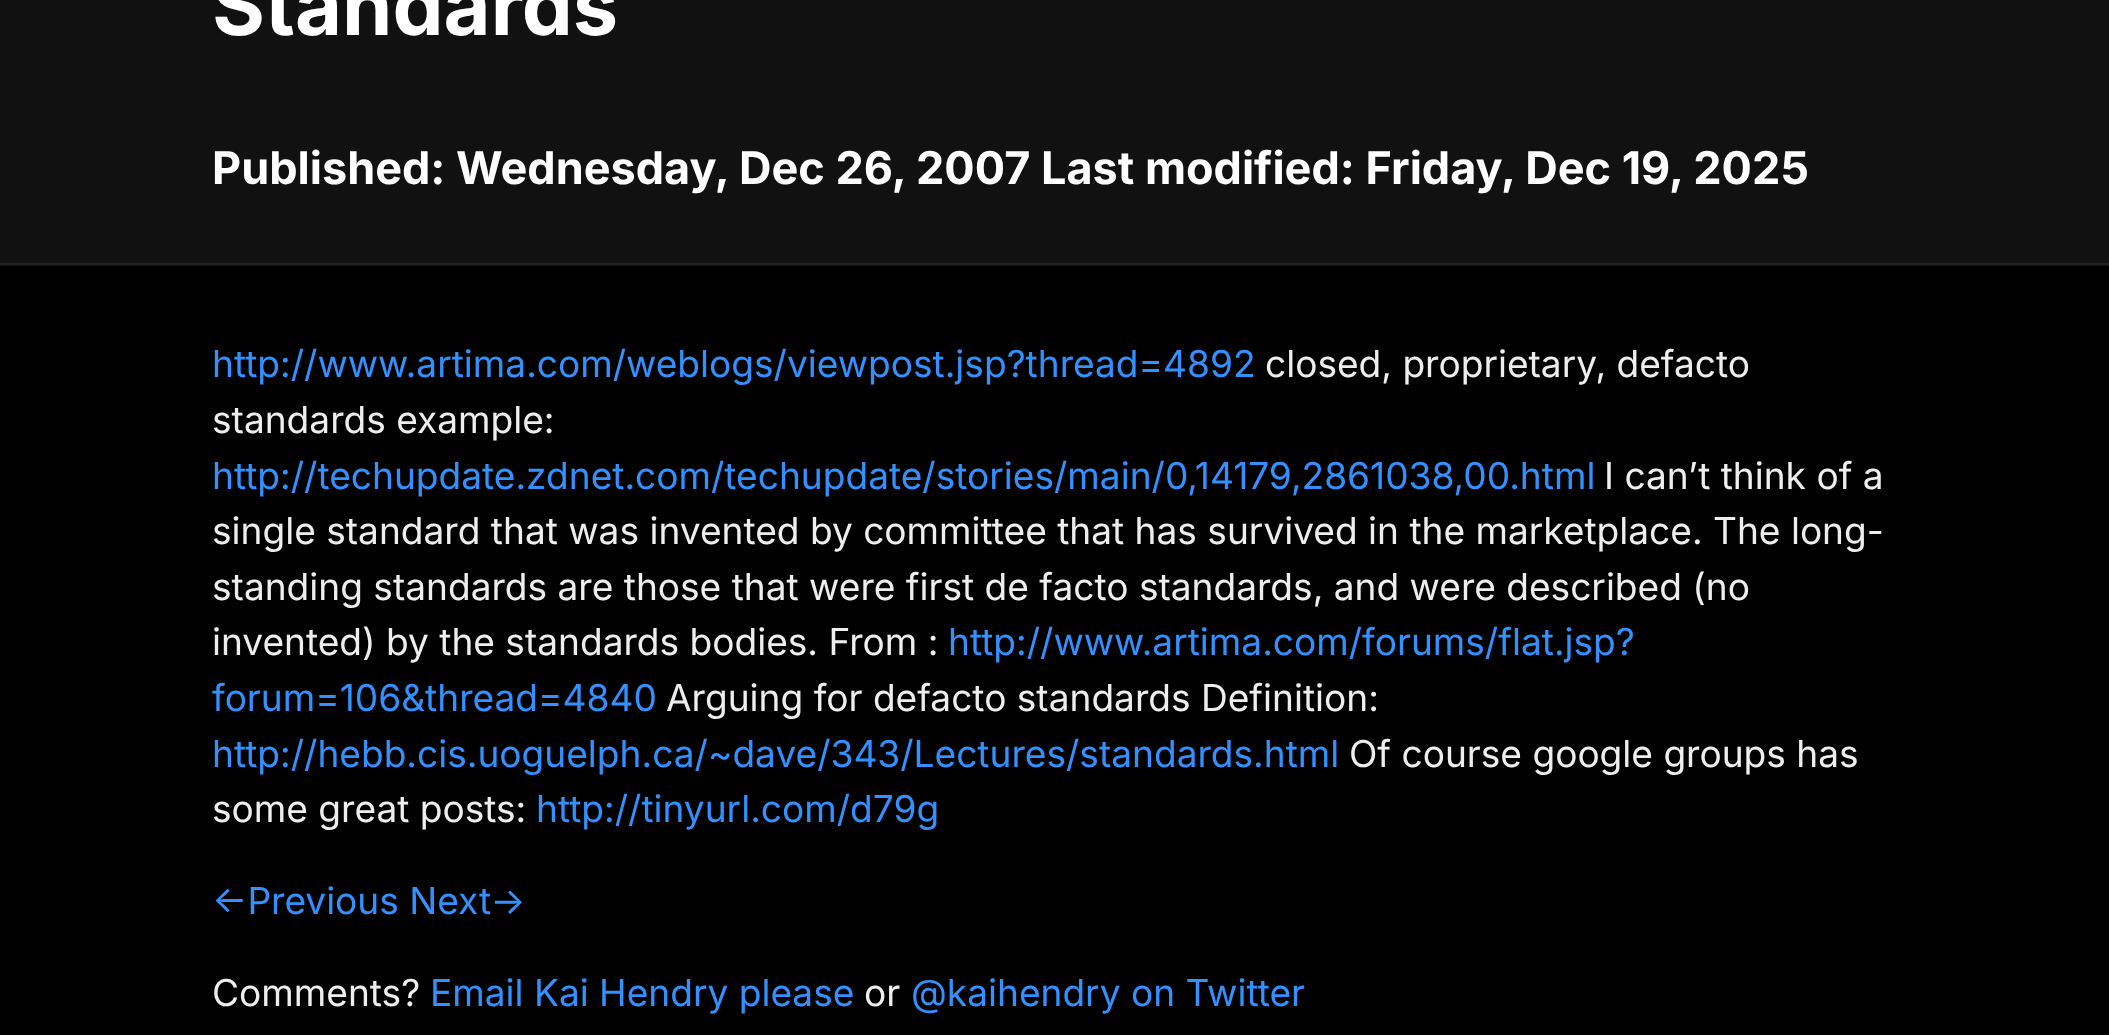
<?xml version="1.0" encoding="UTF-8"?>
<svg xmlns="http://www.w3.org/2000/svg" width="2109" height="1035">
    <rect width="100%" height="100%" fill="#000000"/>
    <rect x="0" y="0" width="2109" height="266" fill="#111111"/>
    <rect x="0" y="263" width="2109" height="2" fill="#222222"/>
    <text x="212" y="35" font-family="Inter" font-size="81" font-weight="700" fill="#FFFFFF">Standards</text>
    <text x="212" y="184" font-family="Inter" font-size="45" font-weight="700" fill="#FFFFFF">Published: Wednesday, Dec 26, 2007 Last modified: Friday, Dec 19, 2025</text>
    <text x="212" y="377" font-family="Inter" font-size="37.1" fill="#3291FF">http://www.artima.com/weblogs/viewpost.jsp?thread=4892</text>
    <text x="1265" y="377" font-family="Inter" font-size="37.1" fill="#EEEEEE">closed, proprietary, defacto</text>
    <text x="212" y="433" font-family="Inter" font-size="37.1" fill="#EEEEEE">standards example:</text>
    <text x="212" y="489" font-family="Inter" font-size="37.1" fill="#3291FF">http://techupdate.zdnet.com/techupdate/stories/main/0,14179,2861038,00.html</text>
    <text x="1604" y="489" font-family="Inter" font-size="37.1" fill="#EEEEEE">I can’t think of a</text>
    <text font-family="Inter" font-size="37.1" fill="#EEEEEE">
        <tspan x="212" y="544">single standard that was invented by committee that has survived in the marketplace. The long-</tspan>
        <tspan x="212" y="600">standing standards are those that were first de facto standards, and were described (no</tspan>
        <tspan x="212" y="655">invented) by the standards bodies. From :</tspan>
    </text>
    <text x="948" y="655" font-family="Inter" font-size="37.1" fill="#3291FF">http://www.artima.com/forums/flat.jsp?</text>
    <text x="212" y="711" font-family="Inter" font-size="37.1" fill="#3291FF">forum=106&amp;thread=4840</text>
    <text x="666" y="711" font-family="Inter" font-size="37.1" fill="#EEEEEE">Arguing for defacto standards Definition:</text>
    <text x="212" y="767" font-family="Inter" font-size="37.1" fill="#3291FF">http://hebb.cis.uoguelph.ca/~dave/343/Lectures/standards.html</text>
    <text x="1349" y="767" font-family="Inter" font-size="37.1" fill="#EEEEEE">Of course google groups has</text>
    <text x="212" y="822" font-family="Inter" font-size="37.1" fill="#EEEEEE">some great posts:</text>
    <text x="536" y="822" font-family="Inter" font-size="37.1" fill="#3291FF">http://tinyurl.com/d79g</text>
    <text x="212" y="914" font-family="Inter" font-size="37.1" fill="#3291FF">←Previous Next→</text>
    <text x="212" y="1006" font-family="Inter" font-size="37.1" fill="#EEEEEE">Comments?</text>
    <text x="430" y="1006" font-family="Inter" font-size="37.1" fill="#3291FF">Email Kai Hendry please</text>
    <text x="864" y="1006" font-family="Inter" font-size="37.1" fill="#EEEEEE">or</text>
    <text x="911" y="1006" font-family="Inter" font-size="37.1" fill="#3291FF">@kaihendry on Twitter</text>
</svg>
